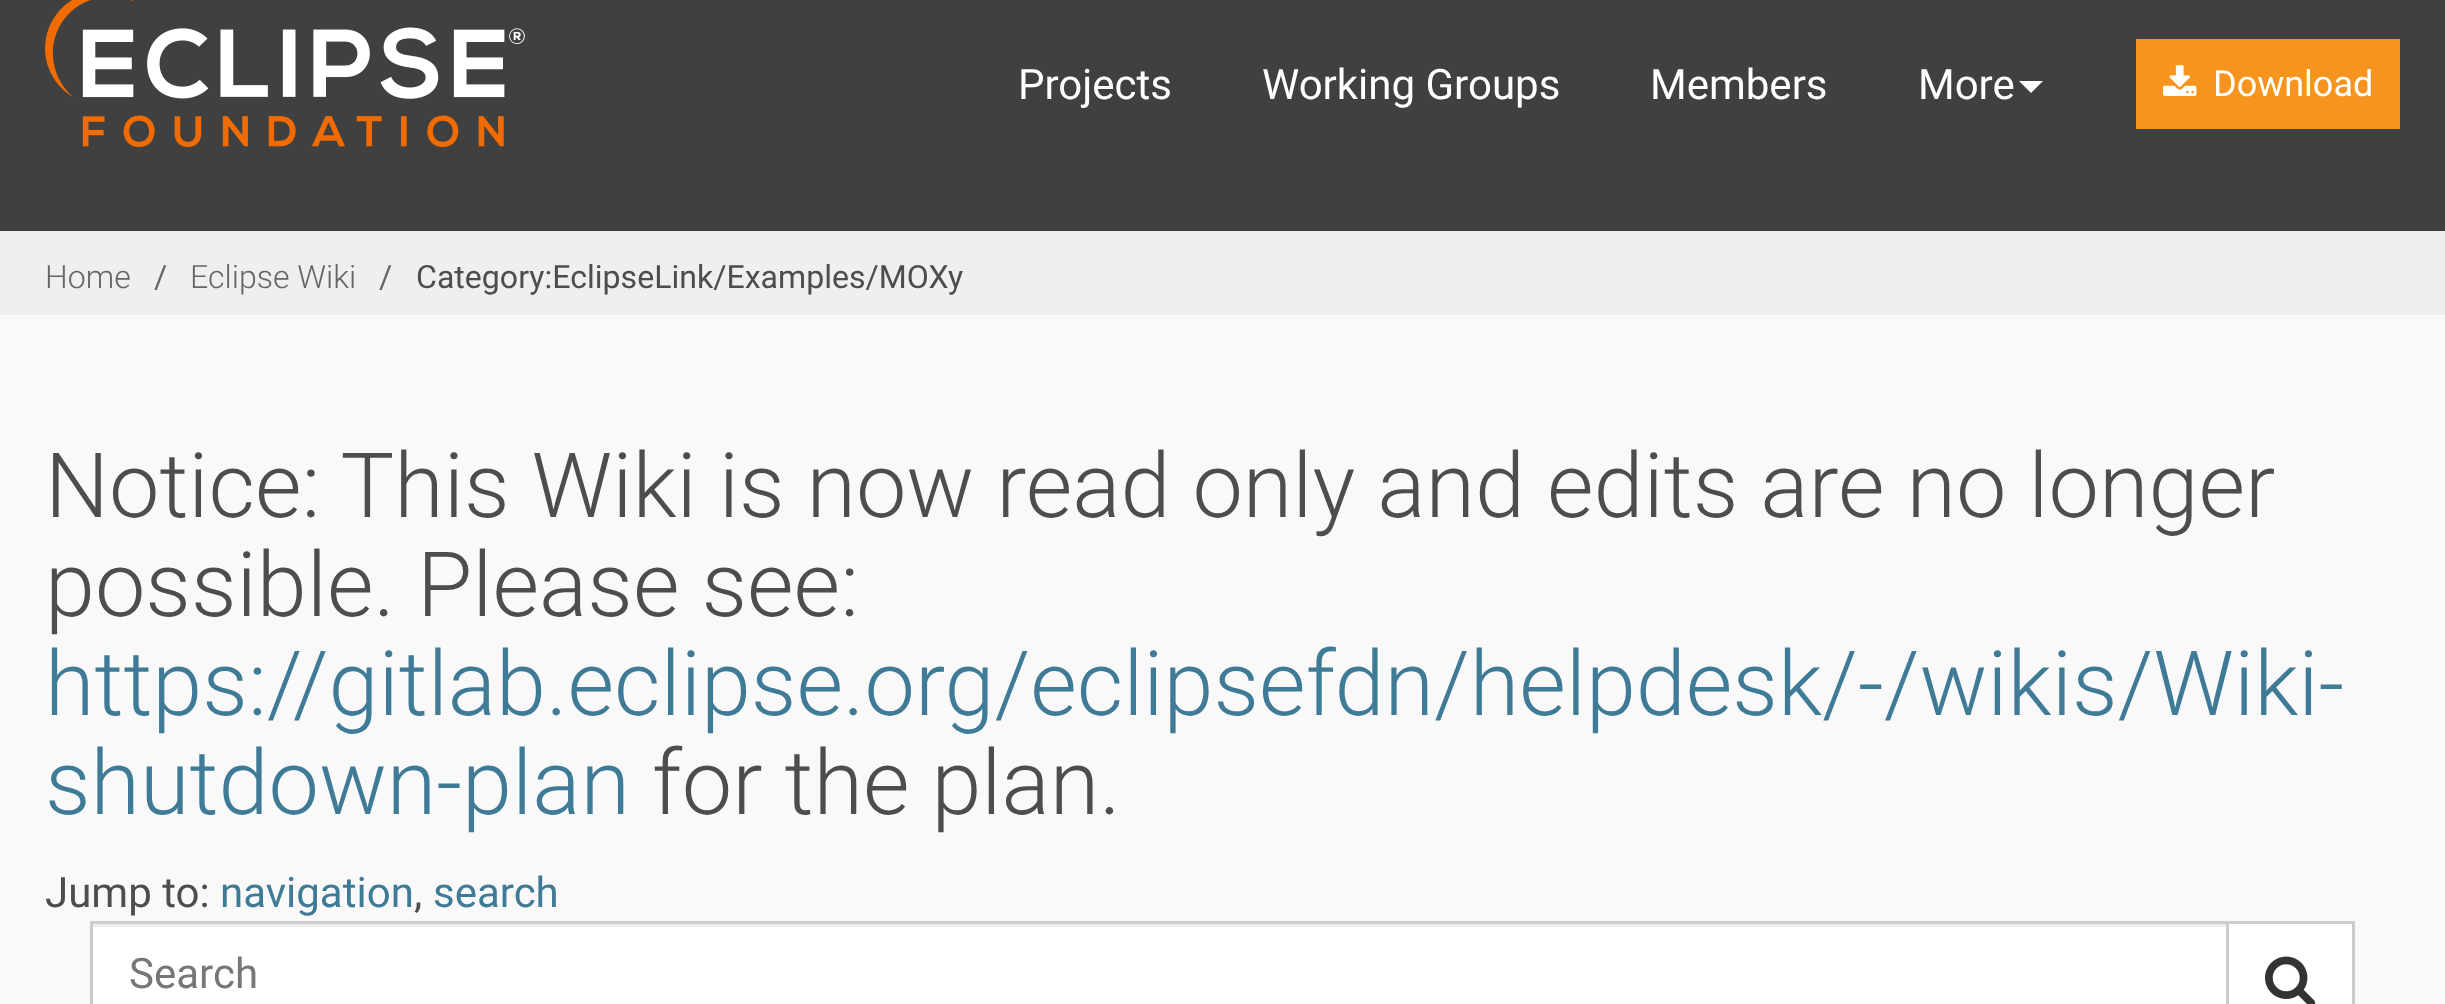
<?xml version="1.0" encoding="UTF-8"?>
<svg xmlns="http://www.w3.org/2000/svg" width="2445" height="1004">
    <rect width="100%" height="100%" fill="#F9F9F9"/>
    <rect x="0" y="0" width="2445" height="231" fill="#404040"/>
    <image x="45" y="0" width="480" height="147" href="img_01.png"/>
    <text x="1018" y="99" font-family="Roboto" font-size="42" fill="#FFFFFF">Projects</text>
    <text x="1262" y="99" font-family="Roboto" font-size="42" fill="#FFFFFF">Working Groups</text>
    <text x="1650" y="99" font-family="Roboto" font-size="42" fill="#FFFFFF">Members</text>
    <text x="1918" y="99" font-family="Roboto" font-size="42" fill="#FFFFFF">More</text>
    <path d="M 2019 81 H 2043 L 2031 93 Z" fill="#FFFFFF"/>
    <rect x="2136" y="39" width="264" height="90" fill="#F7941E"/>
    <image x="2163" y="65" width="34" height="31" href="img_02.png"/>
    <text x="2213" y="96" font-family="Roboto" font-size="36" fill="#FFFFFF">Download</text>
    <rect x="0" y="231" width="2445" height="84" fill="#EFEFEF"/>
    <text x="45" y="288" font-family="Roboto" font-size="32.1" font-weight="300" fill="#656668">Home</text>
    <text x="154" y="288" font-family="Roboto" font-size="32.1" fill="#656668">/</text>
    <text x="190" y="288" font-family="Roboto" font-size="32.1" font-weight="300" fill="#656668">Eclipse Wiki</text>
    <text x="379" y="288" font-family="Roboto" font-size="32.1" fill="#656668">/</text>
    <text x="416" y="288" font-family="Roboto" font-size="32.1" fill="#4C4D4E">Category:EclipseLink/Examples/MOXy</text>
    <text font-family="Roboto" font-size="90" font-weight="300" fill="#4C4D4E">
        <tspan x="45" y="517">Notice: This Wiki is now read only and edits are no longer</tspan>
        <tspan x="45" y="616">possible. Please see:</tspan>
    </text>
    <text font-family="Roboto" font-size="90" font-weight="300" fill="#3F7B96">
        <tspan x="45" y="715">https://gitlab.eclipse.org/eclipsefdn/helpdesk/-/wikis/Wiki-</tspan>
        <tspan x="45" y="814">shutdown-plan</tspan>
    </text>
    <text x="652" y="814" font-family="Roboto" font-size="90" font-weight="300" fill="#4C4D4E">for the plan.</text>
    <text x="45" y="907" font-family="Roboto" font-size="42" fill="#4C4D4E">Jump to:</text>
    <text x="220" y="907" font-family="Roboto" font-size="42" fill="#3F7B96">navigation</text>
    <text x="414" y="907" font-family="Roboto" font-size="42" fill="#4C4D4E">,</text>
    <text x="433" y="907" font-family="Roboto" font-size="42" fill="#3F7B96">search</text>
    <rect x="93" y="927" width="2133" height="77" fill="#FFFFFF"/>
    <rect x="93" y="924" width="2133" height="3" fill="#ECECEC"/>
    <rect x="91.5" y="922.5" width="2136" height="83" fill="none" stroke="#CCCCCC" stroke-width="3"/>
    <text x="129" y="988" font-family="Roboto" font-size="42" fill="#777777">Search</text>
    <rect x="2227.5" y="922.5" width="126" height="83" fill="#FFFFFF" stroke="#CCCCCC" stroke-width="3"/>
    <image x="2265" y="956" width="51" height="48" href="img_03.png"/>
</svg>
